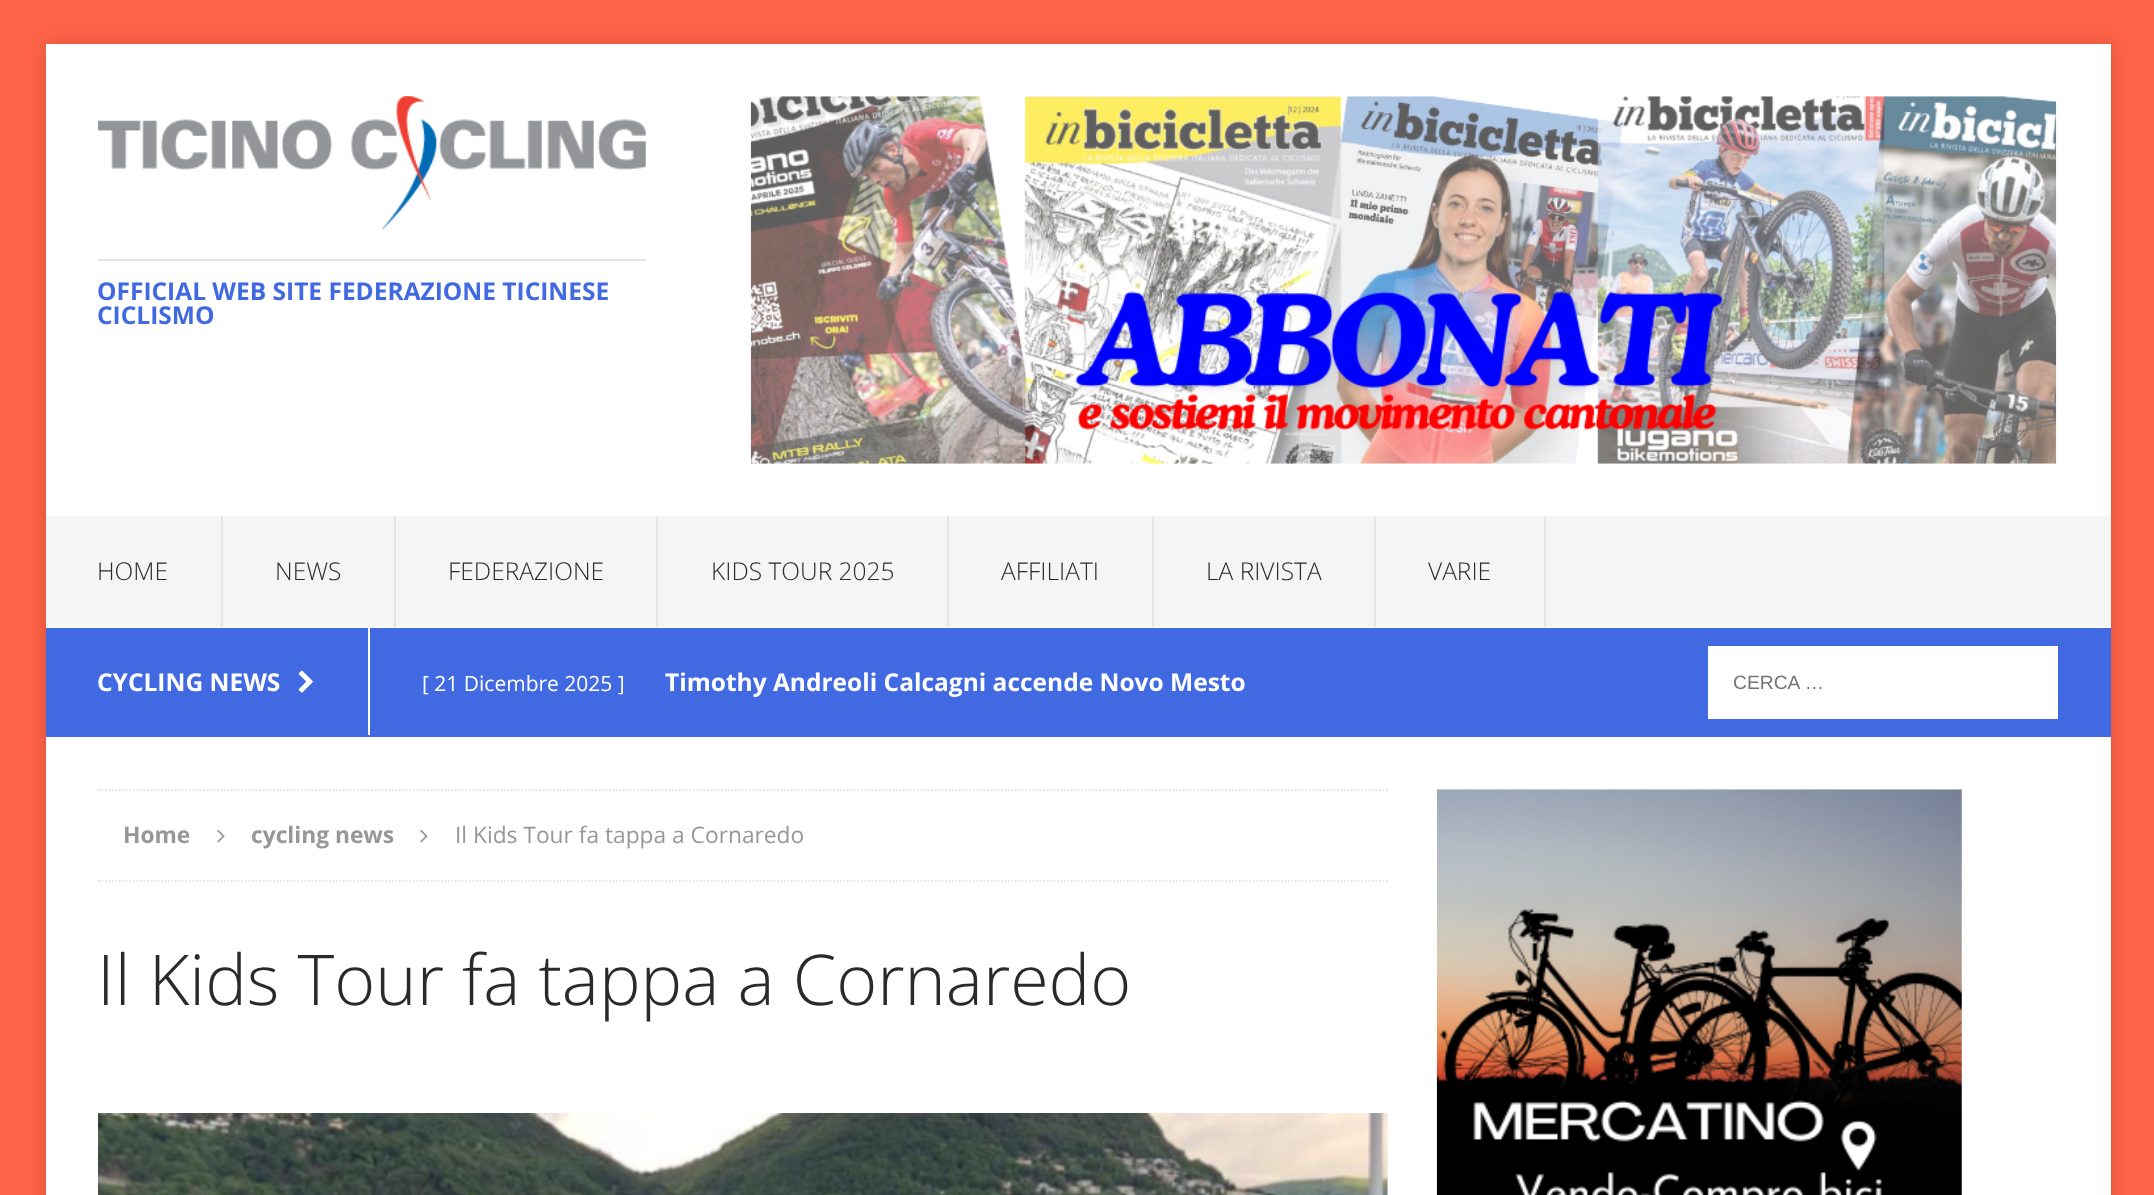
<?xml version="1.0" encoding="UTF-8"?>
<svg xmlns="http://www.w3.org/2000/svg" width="2154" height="1195">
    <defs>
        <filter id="blur1" x="-50%" y="-200%" width="200%" height="500%"><feGaussianBlur stdDeviation="9"/></filter>
    </defs>
    <rect width="100%" height="100%" fill="#FF6347"/>
    <rect x="46" y="44" width="2065" height="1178" fill="#323232" fill-opacity="0.17" filter="url(#blur1)"/>
    <rect x="46" y="44" width="2065" height="472" fill="#FFFFFF"/>
    <image x="98" y="96" width="548" height="134" href="img_01.png"/>
    <rect x="98" y="259" width="548" height="2" fill="#E5E5E5"/>
    <text font-family="Open Sans" font-size="24.5" font-weight="700" fill="#4169E1">
        <tspan x="97" y="300">OFFICIAL WEB SITE FEDERAZIONE TICINESE</tspan>
        <tspan x="97" y="324">CICLISMO</tspan>
    </text>
    <image x="750" y="96" width="1307" height="368" href="img_02.png"/>
    <rect x="46" y="516" width="2065" height="111" fill="#F5F5F5"/>
    <rect x="46" y="627" width="2065" height="1" fill="#FFFFFF"/>
    <rect x="221" y="516" width="2" height="111" fill="#E5E5E5"/>
    <text x="97" y="580" font-family="Open Sans" font-size="24.5" font-weight="300" fill="#2A2A2A">HOME</text>
    <rect x="394" y="516" width="2" height="111" fill="#E5E5E5"/>
    <text x="275" y="580" font-family="Open Sans" font-size="24.5" font-weight="300" fill="#2A2A2A">NEWS</text>
    <rect x="656" y="516" width="2" height="111" fill="#E5E5E5"/>
    <text x="448" y="580" font-family="Open Sans" font-size="24.5" font-weight="300" fill="#2A2A2A">FEDERAZIONE</text>
    <rect x="947" y="516" width="2" height="111" fill="#E5E5E5"/>
    <text x="711" y="580" font-family="Open Sans" font-size="24.5" font-weight="300" fill="#2A2A2A">KIDS TOUR 2025</text>
    <rect x="1152" y="516" width="2" height="111" fill="#E5E5E5"/>
    <text x="1001" y="580" font-family="Open Sans" font-size="24.5" font-weight="300" fill="#2A2A2A">AFFILIATI</text>
    <rect x="1374" y="516" width="2" height="111" fill="#E5E5E5"/>
    <text x="1206" y="580" font-family="Open Sans" font-size="24.5" font-weight="300" fill="#2A2A2A">LA RIVISTA</text>
    <rect x="1544" y="516" width="2" height="111" fill="#E5E5E5"/>
    <text x="1428" y="580" font-family="Open Sans" font-size="24.5" font-weight="300" fill="#2A2A2A">VARIE</text>
    <rect x="46" y="628" width="2065" height="109" fill="#4169E1"/>
    <rect x="368" y="628" width="2" height="107" fill="#FFFFFF"/>
    <text x="97" y="691" font-family="Open Sans" font-size="24.5" font-weight="700" fill="#FFFFFF">CYCLING NEWS</text>
    <image x="298" y="670" width="15" height="23" href="img_03.png"/>
    <text x="422" y="691" font-family="Open Sans" font-size="21" fill="#FFFFFF">[ 21 Dicembre 2025 ]</text>
    <text x="665" y="691" font-family="Open Sans" font-size="24.5" font-weight="700" fill="#FFFFFF">Timothy Andreoli Calcagni accende Novo Mesto</text>
    <rect x="1708" y="646" width="350" height="73" fill="#FFFFFF"/>
    <text x="1733" y="689" font-family="Liberation Sans" font-size="19.25" fill="#757575">CERCA …</text>
    <rect x="46" y="737" width="2065" height="458" fill="#FFFFFF"/>
    <path d="M 98 790 H 1388" fill="none" stroke="#E5E5E5" stroke-width="1.8" stroke-dasharray="1.75 1.75"/>
    <path d="M 98 881 H 1388" fill="none" stroke="#E5E5E5" stroke-width="1.8" stroke-dasharray="1.75 1.75"/>
    <text x="123" y="843" font-family="Open Sans" font-size="22.75" font-weight="700" fill="#979797">Home</text>
    <image x="217" y="829" width="8" height="14" href="img_04.png"/>
    <text x="251" y="843" font-family="Open Sans" font-size="22.75" font-weight="700" fill="#979797">cycling news</text>
    <image x="420" y="829" width="8" height="14" href="img_04.png"/>
    <text x="455" y="843" font-family="Open Sans" font-size="22.75" fill="#979797">Il Kids Tour fa tappa a Cornaredo</text>
    <text x="97" y="1005" font-family="Open Sans" font-size="70" font-weight="300" fill="#2A2A2A">Il Kids Tour fa tappa a Cornaredo</text>
    <image x="98" y="1113" width="1290" height="82" href="img_05.png"/>
    <image x="1436" y="789" width="526" height="406" href="img_06.png"/>
</svg>
